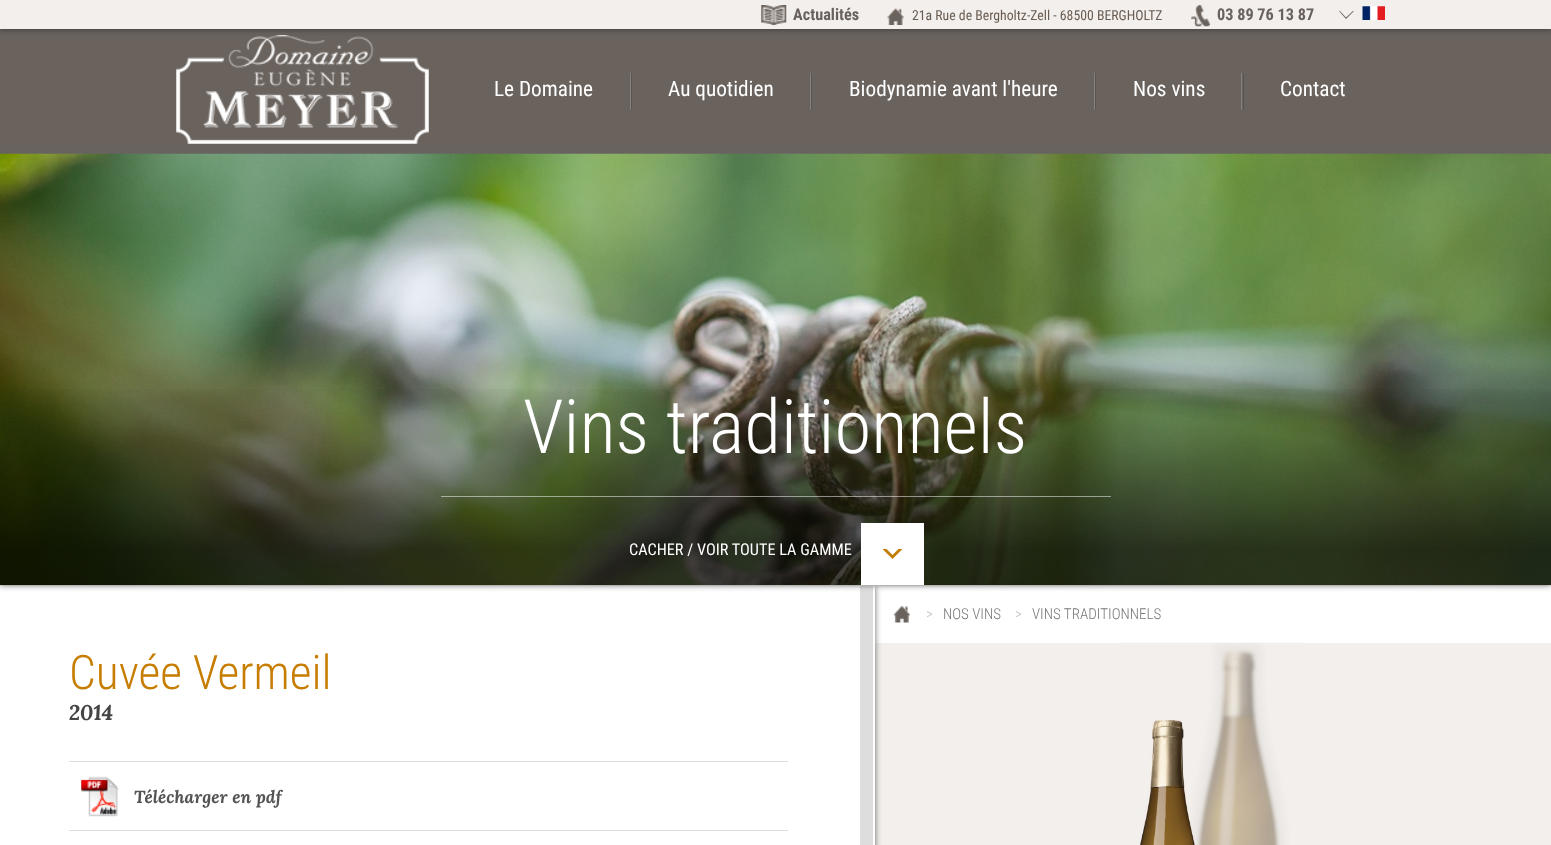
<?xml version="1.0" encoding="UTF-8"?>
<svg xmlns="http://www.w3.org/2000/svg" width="1551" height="845">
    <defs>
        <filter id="blur1" x="-50%" y="-200%" width="200%" height="500%"><feGaussianBlur stdDeviation="3"/></filter>
        <clipPath id="clip1"><path d="M 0 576 H 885 V 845 H 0 Z M 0 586 H 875 V 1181 H 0 Z" clip-rule="evenodd"/></clipPath>
    </defs>
    <rect width="100%" height="100%" fill="#FFFFFF"/>
    <rect x="0" y="29" width="1551" height="125" fill="#69625D"/>
    <rect x="0" y="0" width="1551" height="29" fill="#333333" filter="url(#blur1)"/>
    <rect x="0" y="0" width="1551" height="29" fill="#F2EFEC"/>
    <image x="761" y="5" width="26" height="20" href="img_01.png"/>
    <text x="793" y="20" font-family="Roboto Condensed" font-size="16.25" font-weight="700" fill="#68615D">Actualités</text>
    <image x="887" y="8" width="17" height="17" href="img_02.png"/>
    <text x="912" y="20" font-family="Roboto Condensed" font-size="13.75" fill="#695C52">21a Rue de Bergholtz-Zell - 68500 BERGHOLTZ</text>
    <image x="1191" y="5" width="19" height="22" href="img_03.png"/>
    <text x="1217" y="20" font-family="Roboto Condensed" font-size="16.25" font-weight="700" fill="#68615D">03 89 76 13 87</text>
    <path d="M 1339 11 H 1354 L 1346 19 Z" fill="#6B635D"/>
    <path d="M 1339 10 H 1354 L 1346 17.5 Z" fill="#F2EFEC"/>
    <image x="1362" y="6" width="23" height="14" href="img_04.png"/>
    <image x="176" y="35" width="253" height="109" href="img_05.png"/>
    <text x="494" y="96" font-family="Roboto Condensed" font-size="21.25" fill="#FFFFFF">Le Domaine</text>
    <rect x="630" y="73" width="1" height="37" fill="#87817D"/>
    <rect x="631" y="73" width="1" height="37" fill="#5B5551"/>
    <text x="668" y="96" font-family="Roboto Condensed" font-size="21.25" fill="#FFFFFF">Au quotidien</text>
    <rect x="810" y="73" width="1" height="37" fill="#87817D"/>
    <rect x="811" y="73" width="1" height="37" fill="#5B5551"/>
    <text x="849" y="96" font-family="Roboto Condensed" font-size="21.25" fill="#FFFFFF">Biodynamie avant l'heure</text>
    <rect x="1094" y="73" width="1" height="37" fill="#87817D"/>
    <rect x="1095" y="73" width="1" height="37" fill="#5B5551"/>
    <text x="1133" y="96" font-family="Roboto Condensed" font-size="21.25" fill="#FFFFFF">Nos vins</text>
    <rect x="1241" y="73" width="1" height="37" fill="#87817D"/>
    <rect x="1243" y="73" width="1" height="37" fill="#5B5551"/>
    <text x="1280" y="96" font-family="Roboto Condensed" font-size="21.25" fill="#FFFFFF">Contact</text>
    <rect x="875" y="643" width="676" height="202" fill="#F2EFEC"/>
    <g clip-path="url(#clip1)">
        <rect x="0" y="586" width="875" height="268" fill="#656565" filter="url(#blur1)"/>
    </g>
    <rect x="0" y="585" width="1551" height="1" fill="#F3EFEC"/>
    <rect x="860" y="586" width="13" height="259" fill="#000000" fill-opacity="0.3"/>
    <rect x="860" y="586" width="13" height="259" fill="#FFFFFF" fill-opacity="0.56"/>
    <rect x="0" y="154" width="1551" height="431" fill="#656565" filter="url(#blur1)"/>
    <image x="0" y="153" width="1551" height="432" href="img_06.png"/>
    <image x="0" y="389" width="1551" height="196" href="img_07.png"/>
    <rect x="441" y="496" width="670" height="1" fill="#FFFFFF" fill-opacity="0.5"/>
    <text x="523" y="453" font-family="Roboto Condensed" font-size="75" font-weight="300" fill="#FFFFFF">Vins traditionnels</text>
    <text x="629" y="555" font-family="Roboto Condensed" font-size="16.25" fill="#FFFFFF">CACHER / VOIR TOUTE LA GAMME</text>
    <rect x="861" y="523" width="63" height="62" fill="#FFFFFF"/>
    <path d="M 882.5 549 H 902.5 L 892.5 559 Z" fill="#C27C00"/>
    <path d="M 882.5 545 H 902.5 L 892.5 555 Z" fill="#FFFFFF"/>
    <image x="893" y="606" width="17" height="17" href="img_08.png"/>
    <text x="926" y="619" font-family="Roboto Condensed" font-size="15" font-weight="300" fill="#BBBBBB">&gt;</text>
    <text x="943" y="619" font-family="Roboto Condensed" font-size="15" font-weight="300" fill="#777777">NOS VINS</text>
    <text x="1015" y="619" font-family="Roboto Condensed" font-size="15" font-weight="300" fill="#BBBBBB">&gt;</text>
    <text x="1032" y="619" font-family="Roboto Condensed" font-size="15" font-weight="300" fill="#777777">VINS TRADITIONNELS</text>
    <text x="69" y="689" font-family="Roboto Condensed" font-size="47.5" font-weight="300" fill="#C77D00">Cuvée Vermeil</text>
    <text x="69" y="720" font-family="Lora" font-size="21.25" font-weight="700" font-style="italic" fill="#444444">2014</text>
    <rect x="69" y="761" width="719" height="1" fill="#DDDDDD"/>
    <rect x="69" y="830" width="719" height="1" fill="#DDDDDD"/>
    <image x="81" y="776" width="38" height="41" href="img_09.png"/>
    <text x="134" y="803" font-family="Lora" font-size="17.5" font-weight="700" font-style="italic" fill="#545454">Télécharger en pdf</text>
    <image x="1120" y="642" width="186" height="203" href="img_10.png"/>
</svg>
